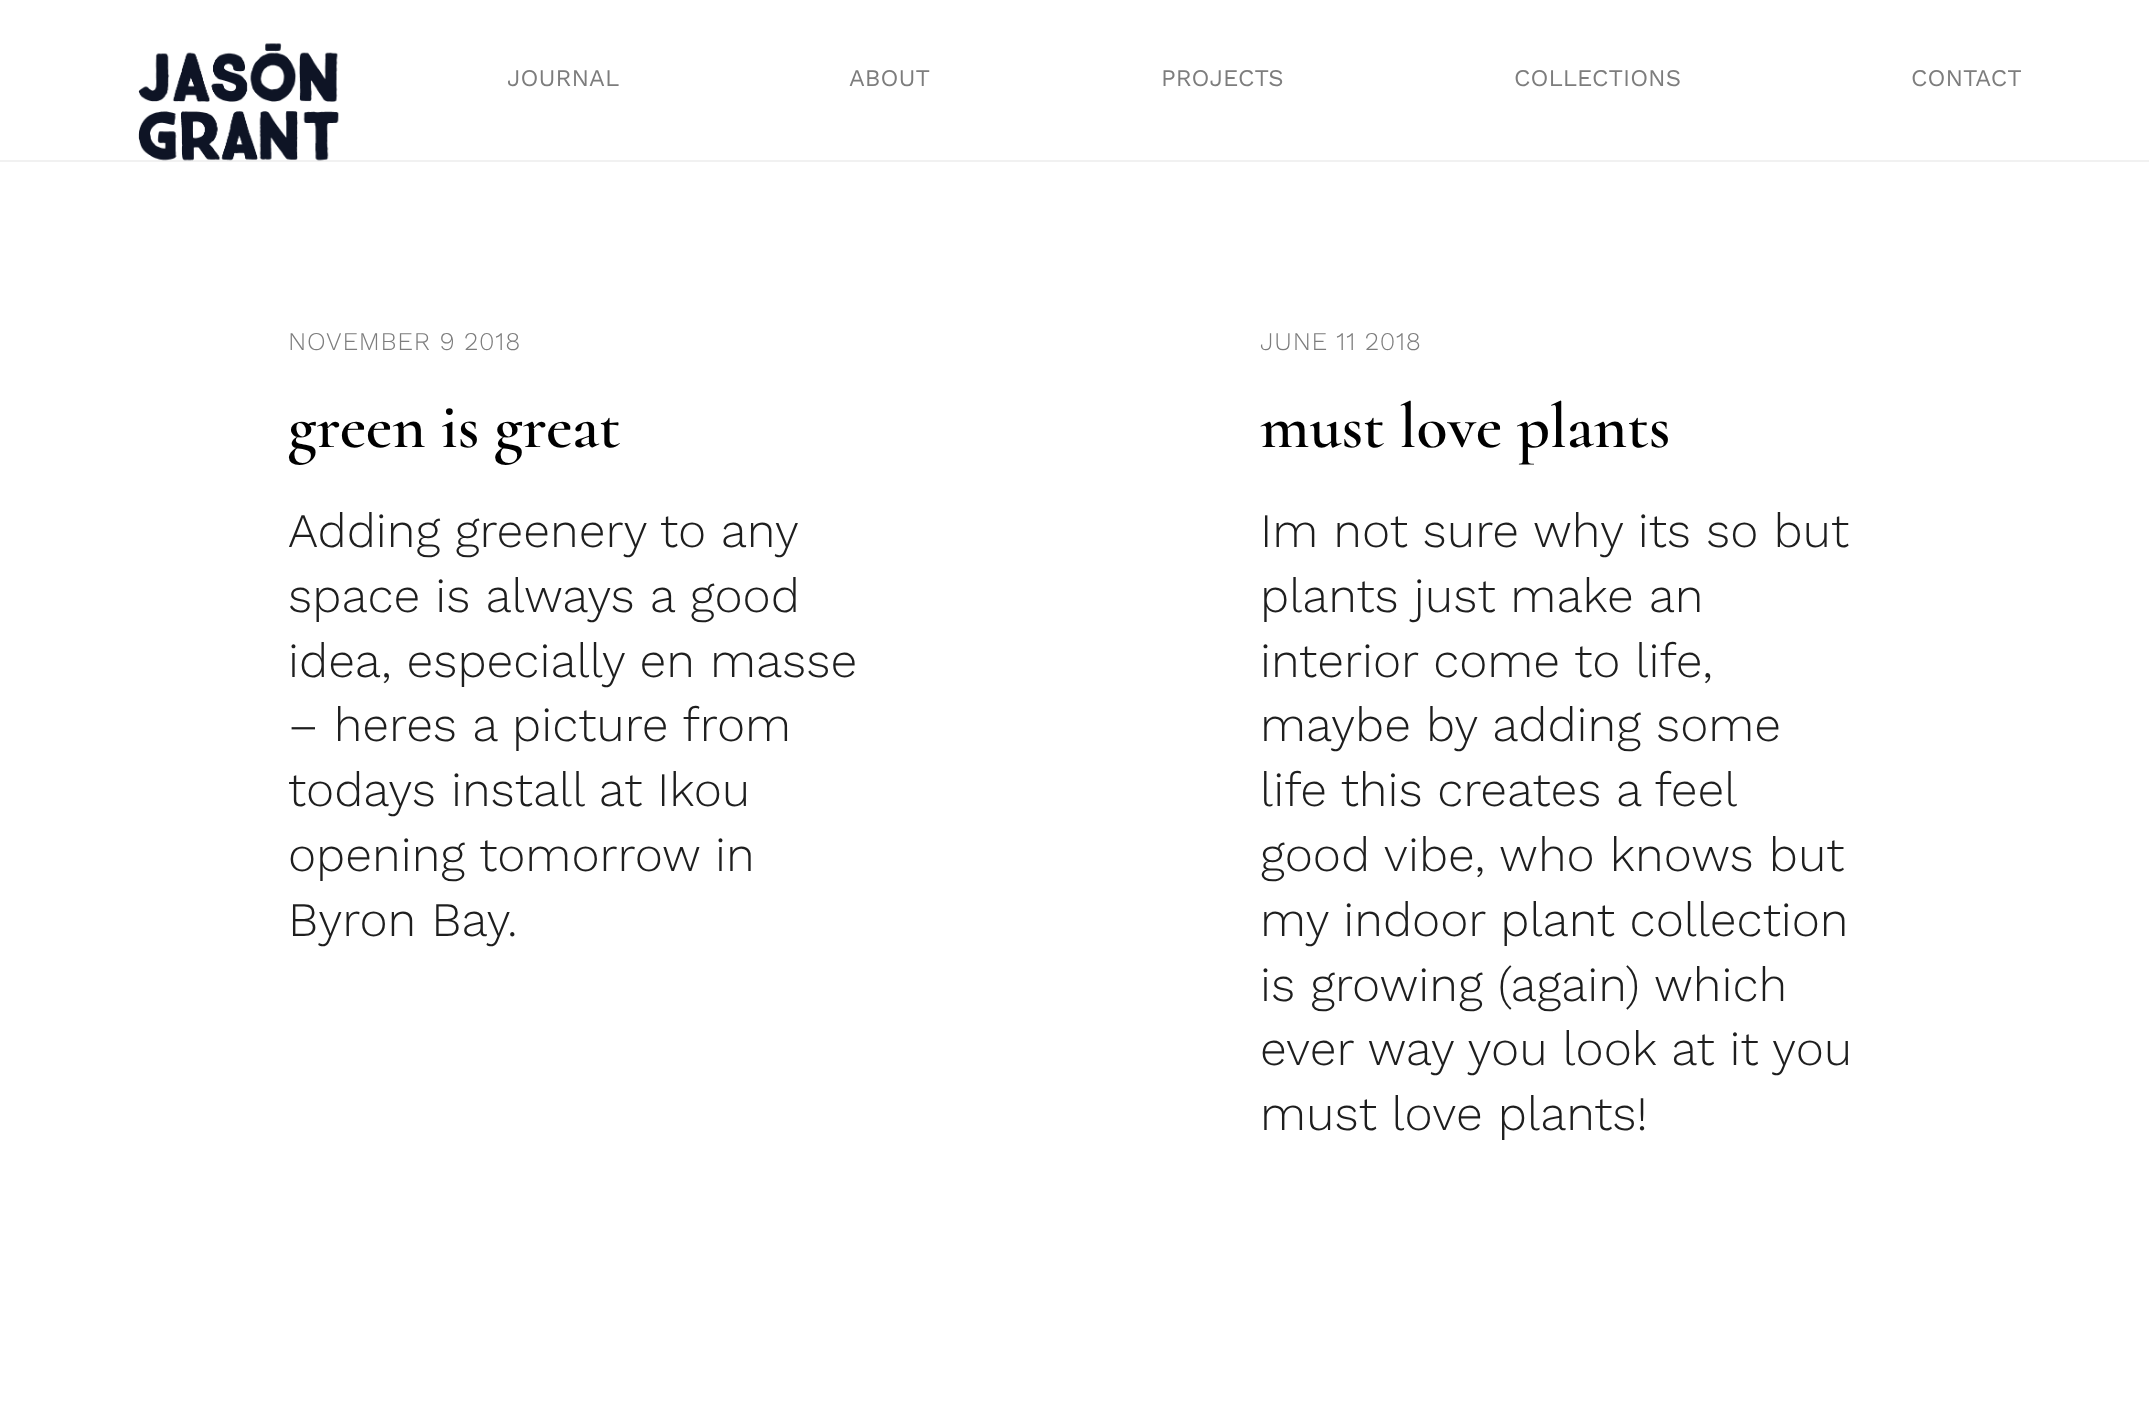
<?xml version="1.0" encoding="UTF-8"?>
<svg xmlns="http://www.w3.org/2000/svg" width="2149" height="1422">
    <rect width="100%" height="100%" fill="#FFFFFF"/>
    <rect x="0" y="160" width="2149" height="2" fill="#F1F1F1"/>
    <image x="138" y="43" width="201" height="118" href="img_01.png"/>
    <text x="507" y="86" font-family="Work Sans" font-size="24" fill="#7D7D7D">JOURNAL</text>
    <text x="849" y="86" font-family="Work Sans" font-size="24" fill="#7D7D7D">ABOUT</text>
    <text x="1161" y="86" font-family="Work Sans" font-size="24" fill="#7D7D7D">PROJECTS</text>
    <text x="1514" y="86" font-family="Work Sans" font-size="24" fill="#7D7D7D">COLLECTIONS</text>
    <text x="1911" y="86" font-family="Work Sans" font-size="24" fill="#7D7D7D">CONTACT</text>
    <text x="288" y="350" font-family="Work Sans" font-size="25.5" font-weight="300" letter-spacing="0.75" fill="#7D7D7D">NOVEMBER 9 2018</text>
    <text x="288" y="447" font-family="Cormorant" font-size="64" font-weight="600" fill="#000000">green is great</text>
    <text font-family="Work Sans" font-size="48" font-weight="300" fill="#1E1E1E">
        <tspan x="288" y="547" word-spacing="-0.5">Adding greenery to any</tspan>
        <tspan x="288" y="612">space is always a good</tspan>
        <tspan x="288" y="677">idea, especially en masse</tspan>
        <tspan x="288" y="741">– heres a picture from</tspan>
        <tspan x="288" y="806">todays install at Ikou</tspan>
        <tspan x="288" y="871">opening tomorrow in</tspan>
        <tspan x="288" y="936">Byron Bay.</tspan>
    </text>
    <text x="1260" y="350" font-family="Work Sans" font-size="25.5" font-weight="300" letter-spacing="0.75" fill="#7D7D7D">JUNE 11 2018</text>
    <text x="1260" y="447" font-family="Cormorant" font-size="64" font-weight="600" fill="#000000">must love plants</text>
    <text font-family="Work Sans" font-size="48" font-weight="300" fill="#1E1E1E">
        <tspan x="1260" y="547">Im not sure why its so but</tspan>
        <tspan x="1260" y="612">plants just make an</tspan>
        <tspan x="1260" y="677">interior come to life,</tspan>
        <tspan x="1260" y="741">maybe by adding some</tspan>
        <tspan x="1260" y="806" word-spacing="-0.5">life this creates a feel</tspan>
        <tspan x="1260" y="871">good vibe, who knows but</tspan>
        <tspan x="1260" y="936">my indoor plant collection</tspan>
        <tspan x="1260" y="1001">is growing (again) which</tspan>
        <tspan x="1260" y="1065">ever way you look at it you</tspan>
        <tspan x="1260" y="1130">must love plants!</tspan>
    </text>
</svg>
